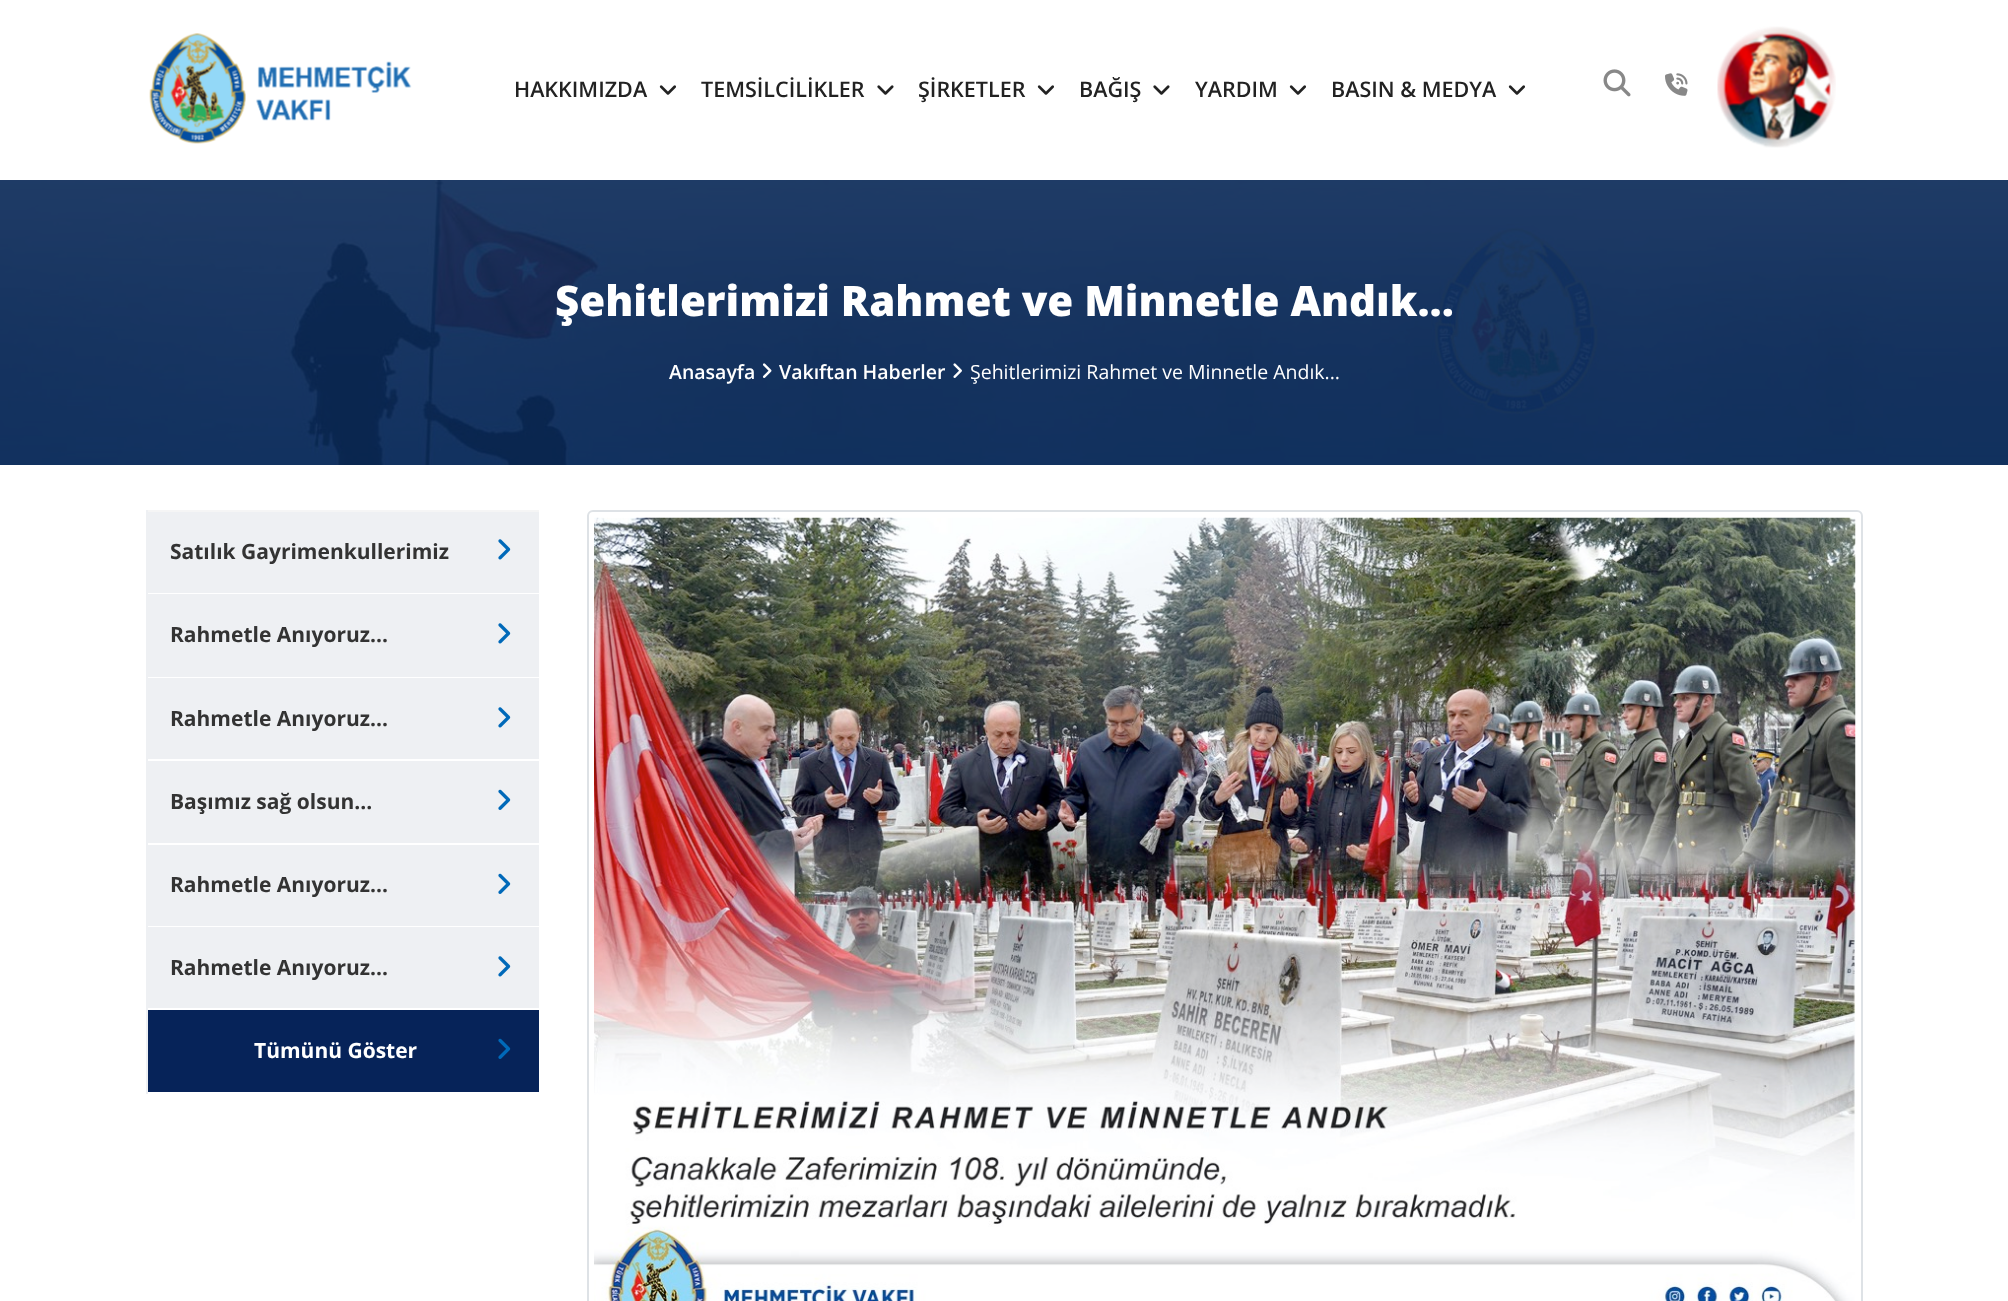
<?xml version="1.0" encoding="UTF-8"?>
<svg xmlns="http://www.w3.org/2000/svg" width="2008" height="1301">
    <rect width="100%" height="100%" fill="#FFFFFF"/>
    <image x="149" y="33" width="263" height="111" href="img_01.png"/>
    <text x="514" y="97" font-family="Open Sans" font-size="21.5" font-weight="600" fill="#222222">HAKKIMIZDA</text>
    <image x="659" y="85" width="17" height="10" href="img_02.png"/>
    <text x="701" y="97" font-family="Open Sans" font-size="21.5" font-weight="600" fill="#222222">TEMSİLCİLİKLER</text>
    <image x="877" y="85" width="17" height="10" href="img_03.png"/>
    <text x="918" y="97" font-family="Open Sans" font-size="21.5" font-weight="600" fill="#222222">ŞİRKETLER</text>
    <image x="1037" y="85" width="17" height="10" href="img_02.png"/>
    <text x="1079" y="97" font-family="Open Sans" font-size="21.5" font-weight="600" fill="#222222">BAĞIŞ</text>
    <image x="1153" y="85" width="17" height="10" href="img_03.png"/>
    <text x="1195" y="97" font-family="Open Sans" font-size="21.5" font-weight="600" fill="#222222">YARDIM</text>
    <image x="1289" y="85" width="17" height="10" href="img_02.png"/>
    <text x="1331" y="97" font-family="Open Sans" font-size="21.5" font-weight="600" fill="#222222">BASIN &amp; MEDYA</text>
    <image x="1508" y="85" width="17" height="10" href="img_02.png"/>
    <image x="1603" y="69" width="28" height="28" href="img_04.png"/>
    <image x="1665" y="73" width="23" height="23" href="img_05.png"/>
    <image x="1717" y="26" width="119" height="122" href="img_06.png"/>
    <image x="0" y="180" width="2008" height="285" href="img_07.png"/>
    <text x="555" y="316" font-family="Open Sans" font-size="42" font-weight="800" fill="#FFFFFF">Şehitlerimizi Rahmet ve Minnetle Andık...</text>
    <text x="669" y="379" font-family="Open Sans" font-size="19.5" font-weight="600" fill="#FFFFFF">Anasayfa</text>
    <image x="762" y="363" width="10" height="15" href="img_08.png"/>
    <text x="779" y="379" font-family="Open Sans" font-size="19.5" font-weight="600" fill="#FFFFFF">Vakıftan Haberler</text>
    <image x="953" y="363" width="9" height="15" href="img_09.png"/>
    <text x="970" y="379" font-family="Open Sans" font-size="19.5" fill="#FFFFFF">Şehitlerimizi Rahmet ve Minnetle Andık...</text>
    <rect x="148" y="512" width="391" height="81" fill="#EEF0F3"/>
    <rect x="146" y="510" width="393" height="2" fill="#F5F5F5"/>
    <rect x="146" y="510" width="2" height="584" fill="#EEF0F3"/>
    <text x="170" y="559" font-family="Open Sans" font-size="21" font-weight="700" fill="#333333">Satılık Gayrimenkullerimiz</text>
    <image x="498" y="539" width="13" height="21" href="img_10.png"/>
    <rect x="148" y="594" width="391" height="83" fill="#EEF0F3"/>
    <text x="170" y="642" font-family="Open Sans" font-size="21" font-weight="700" fill="#333333">Rahmetle Anıyoruz...</text>
    <image x="498" y="623" width="13" height="21" href="img_10.png"/>
    <rect x="148" y="678" width="391" height="81" fill="#EEF0F3"/>
    <text x="170" y="726" font-family="Open Sans" font-size="21" font-weight="700" fill="#333333">Rahmetle Anıyoruz...</text>
    <image x="498" y="707" width="13" height="21" href="img_10.png"/>
    <rect x="148" y="761" width="391" height="82" fill="#EEF0F3"/>
    <text x="170" y="809" font-family="Open Sans" font-size="21" font-weight="700" fill="#333333">Başımız sağ olsun...</text>
    <image x="498" y="789" width="13" height="21" href="img_11.png"/>
    <rect x="148" y="845" width="391" height="81" fill="#EEF0F3"/>
    <text x="170" y="892" font-family="Open Sans" font-size="21" font-weight="700" fill="#333333">Rahmetle Anıyoruz...</text>
    <image x="498" y="873" width="13" height="21" href="img_11.png"/>
    <rect x="148" y="927" width="391" height="81" fill="#EEF0F3"/>
    <text x="170" y="975" font-family="Open Sans" font-size="21" font-weight="700" fill="#333333">Rahmetle Anıyoruz...</text>
    <image x="498" y="956" width="13" height="21" href="img_10.png"/>
    <rect x="148" y="1010" width="391" height="82" fill="#062359"/>
    <text x="254" y="1058" font-family="Open Sans" font-size="21" font-weight="700" fill="#FFFFFF">Tümünü Göster</text>
    <image x="498" y="1038" width="13" height="21" href="img_12.png"/>
    <rect x="588" y="511" width="1274" height="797" rx="5" fill="none" stroke="#DEE2E6" stroke-width="2"/>
    <image x="594" y="517" width="1262" height="784" href="img_13.png"/>
</svg>
